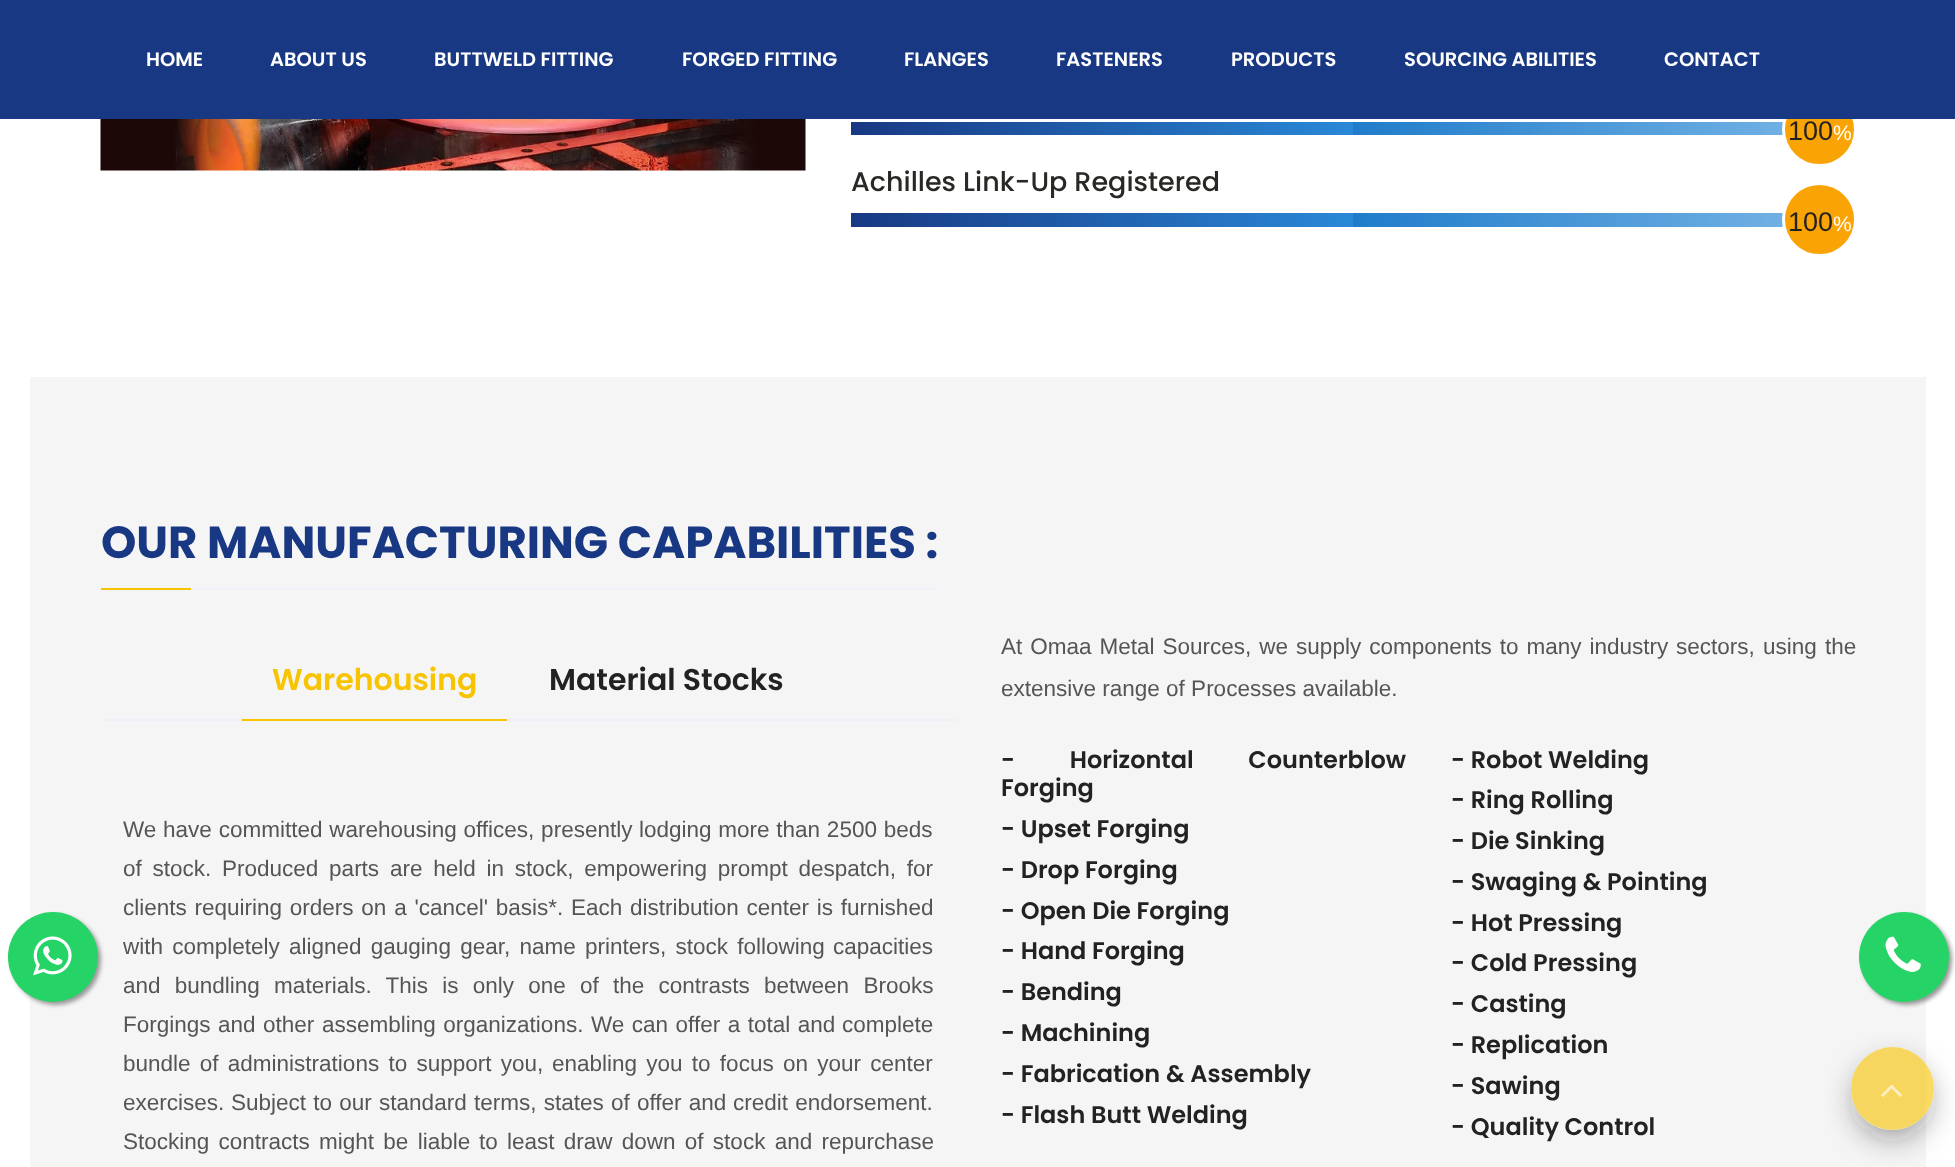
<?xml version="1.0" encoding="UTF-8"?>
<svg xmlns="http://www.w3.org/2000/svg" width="1955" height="1167">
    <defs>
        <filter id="blur1" x="-50%" y="-200%" width="200%" height="500%"><feGaussianBlur stdDeviation="2"/></filter>
        <linearGradient id="g1" gradientUnits="userSpaceOnUse" x1="851" y1="128" x2="1856" y2="128"><stop offset="0" stop-color="#183883"/><stop offset="0.5" stop-color="#2989D8"/><stop offset="0.5" stop-color="#207CCA"/><stop offset="1" stop-color="#7DB9E8"/></linearGradient>
        <linearGradient id="g2" gradientUnits="userSpaceOnUse" x1="851" y1="220" x2="1856" y2="220"><stop offset="0" stop-color="#183883"/><stop offset="0.5" stop-color="#2989D8"/><stop offset="0.5" stop-color="#207CCA"/><stop offset="1" stop-color="#7DB9E8"/></linearGradient>
        <clipPath id="clip1"><path d="M 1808 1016 H 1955 V 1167 H 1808 Z M 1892.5 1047 C 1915.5 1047 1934 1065.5 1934 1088.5 C 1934 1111.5 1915.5 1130 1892.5 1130 C 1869.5 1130 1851 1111.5 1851 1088.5 C 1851 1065.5 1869.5 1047 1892.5 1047 Z" clip-rule="evenodd"/></clipPath>
        <filter id="blur2" x="-50%" y="-200%" width="200%" height="500%"><feGaussianBlur stdDeviation="17"/></filter>
    </defs>
    <rect width="100%" height="100%" fill="#FFFFFF"/>
    <rect x="30" y="377" width="1896" height="790" fill="#F5F5F5"/>
    <rect x="11" y="915" width="90" height="90" rx="45" fill="#999999" filter="url(#blur1)"/>
    <circle cx="53" cy="957" r="45" fill="#25D366"/>
    <image x="33" y="936" width="39" height="40" href="img_01.png"/>
    <rect x="851" y="122" width="932" height="13" fill="url(#g1)"/>
    <circle cx="1819.5" cy="129.5" r="36" fill="#F9A305" stroke="#FFFFFF" stroke-width="3"/>
    <rect x="0" y="0" width="1955" height="119" fill="#183883"/>
    <text x="146" y="66" font-family="Poppins" font-size="19.5" font-weight="600" fill="#FFFFFF">HOME</text>
    <text x="270" y="66" font-family="Poppins" font-size="19.5" font-weight="600" fill="#FFFFFF">ABOUT US</text>
    <text x="434" y="66" font-family="Poppins" font-size="19.5" font-weight="600" fill="#FFFFFF">BUTTWELD FITTING</text>
    <text x="682" y="66" font-family="Poppins" font-size="19.5" font-weight="600" fill="#FFFFFF">FORGED FITTING</text>
    <text x="904" y="66" font-family="Poppins" font-size="19.5" font-weight="600" fill="#FFFFFF">FLANGES</text>
    <text x="1056" y="66" font-family="Poppins" font-size="19.5" font-weight="600" fill="#FFFFFF">FASTENERS</text>
    <text x="1231" y="66" font-family="Poppins" font-size="19.5" font-weight="600" fill="#FFFFFF">PRODUCTS</text>
    <text x="1404" y="66" font-family="Poppins" font-size="19.5" font-weight="600" fill="#FFFFFF">SOURCING ABILITIES</text>
    <text x="1664" y="66" font-family="Poppins" font-size="19.5" font-weight="600" fill="#FFFFFF">CONTACT</text>
    <image x="100" y="119" width="706" height="52" href="img_02.png"/>
    <text x="1788" y="140" font-family="Liberation Sans" font-size="27" fill="#222222">100</text>
    <text x="1833" y="140" font-family="Liberation Sans" font-size="21" fill="#FFFFFF">%</text>
    <text x="851" y="191" font-family="Poppins" font-size="27" font-weight="500" fill="#282925">Achilles Link-Up Registered</text>
    <rect x="851" y="213" width="932" height="14" fill="url(#g2)"/>
    <circle cx="1819.5" cy="219.5" r="36" fill="#F9A305" stroke="#FFFFFF" stroke-width="3"/>
    <text x="1788" y="231" font-family="Liberation Sans" font-size="27" fill="#222222">100</text>
    <text x="1833" y="231" font-family="Liberation Sans" font-size="21" fill="#FFFFFF">%</text>
    <text x="101" y="558" font-family="Poppins" font-size="45" font-weight="700" fill="#183883">OUR MANUFACTURING CAPABILITIES :</text>
    <rect x="101" y="588" width="90" height="2" fill="#F8C301"/>
    <rect x="191" y="588" width="747" height="2" fill="#F2F1F9"/>
    <rect x="101" y="719" width="855" height="2" fill="#F0EEF9"/>
    <text x="272" y="690" font-family="Poppins" font-size="30" font-weight="600" fill="#F8C301">Warehousing</text>
    <rect x="242" y="719" width="265" height="2" fill="#F8C301"/>
    <text x="549" y="690" font-family="Poppins" font-size="30" font-weight="600" fill="#222222">Material Stocks</text>
    <text x="123" y="837" word-spacing="0.5" font-family="Liberation Sans" font-size="22.5" fill="#555555">We have committed warehousing offices, presently</text>
    <text x="639" y="837" word-spacing="0.5" font-family="Liberation Sans" font-size="22.5" fill="#555555">lodging more than 2500 beds</text>
    <text x="123" y="876" word-spacing="4.5" font-family="Liberation Sans" font-size="22.5" fill="#555555">of stock. Produced parts</text>
    <text x="390" y="876" word-spacing="4.5" font-family="Liberation Sans" font-size="22.5" fill="#555555">are held in stock, empowering prompt despatch, for</text>
    <text x="123" y="915" word-spacing="1.5" font-family="Liberation Sans" font-size="22.5" fill="#555555">clients requiring orders on a 'cancel' basis*. Each</text>
    <text x="630" y="915" word-spacing="1.5" font-family="Liberation Sans" font-size="22.5" fill="#555555">distribution center is furnished</text>
    <text x="123" y="954" word-spacing="3" font-family="Liberation Sans" font-size="22.5" fill="#555555">with completely</text>
    <text x="289" y="954" word-spacing="3" font-family="Liberation Sans" font-size="22.5" fill="#555555">aligned gauging gear, name printers, stock following</text>
    <text x="833" y="954" font-family="Liberation Sans" font-size="22.5" fill="#555555">capacities</text>
    <text x="123" y="993" word-spacing="8" font-family="Liberation Sans" font-size="22.5" fill="#555555">and bundling materials. This is only one of</text>
    <text x="613" y="993" word-spacing="8" font-family="Liberation Sans" font-size="22.5" fill="#555555">the contrasts between Brooks</text>
    <text x="123" y="1032" word-spacing="1.25" font-family="Liberation Sans" font-size="22.5" fill="#555555">Forgings and other</text>
    <text x="322" y="1032" word-spacing="1.25" font-family="Liberation Sans" font-size="22.5" fill="#555555">assembling organizations. We can offer a total and</text>
    <text x="842" y="1032" font-family="Liberation Sans" font-size="22.5" fill="#555555">complete</text>
    <text x="123" y="1071" word-spacing="3" font-family="Liberation Sans" font-size="22.5" fill="#555555">bundle of administrations to support you,</text>
    <text x="552" y="1071" word-spacing="3" font-family="Liberation Sans" font-size="22.5" fill="#555555">enabling you to focus on your center</text>
    <text x="123" y="1110" font-family="Liberation Sans" font-size="22.5" fill="#555555">exercises.</text>
    <text x="231" y="1110" word-spacing="1" font-family="Liberation Sans" font-size="22.5" fill="#555555">Subject to our standard terms, states of offer and</text>
    <text x="733" y="1110" word-spacing="1" font-family="Liberation Sans" font-size="22.5" fill="#555555">credit endorsement.</text>
    <text x="123" y="1149" word-spacing="3" font-family="Liberation Sans" font-size="22.5" fill="#555555">Stocking contracts might be liable</text>
    <text x="479" y="1149" word-spacing="3" font-family="Liberation Sans" font-size="22.5" fill="#555555">to least draw down of stock and repurchase</text>
    <text x="1001" y="654" word-spacing="1.75" font-family="Liberation Sans" font-size="22.5" fill="#555555">At Omaa Metal Sources, we supply components to many industry</text>
    <text x="1676" y="654" word-spacing="2" font-family="Liberation Sans" font-size="22.5" fill="#555555">sectors, using the</text>
    <text x="1001" y="696" font-family="Liberation Sans" font-size="22.5" fill="#555555">extensive range of Processes available.</text>
    <text font-family="Poppins" font-size="24" font-weight="600" fill="#222222">
        <tspan x="1001" y="768" word-spacing="49">- Horizontal Counterblow</tspan>
        <tspan x="1001" y="796">Forging</tspan>
        <tspan x="1001" y="837">- Upset Forging</tspan>
        <tspan x="1001" y="878">- Drop Forging</tspan>
        <tspan x="1001" y="919">- Open Die Forging</tspan>
        <tspan x="1001" y="959">- Hand Forging</tspan>
        <tspan x="1001" y="1000">- Bending</tspan>
        <tspan x="1001" y="1041">- Machining</tspan>
        <tspan x="1001" y="1082">- Fabrication &amp; Assembly</tspan>
        <tspan x="1001" y="1123">- Flash Butt Welding</tspan>
    </text>
    <text font-family="Poppins" font-size="24" font-weight="600" fill="#222222">
        <tspan x="1451" y="768">- Robot Welding</tspan>
        <tspan x="1451" y="808">- Ring Rolling</tspan>
        <tspan x="1451" y="849">- Die Sinking</tspan>
        <tspan x="1451" y="890">- Swaging &amp; Pointing</tspan>
        <tspan x="1451" y="931">- Hot Pressing</tspan>
        <tspan x="1451" y="971">- Cold Pressing</tspan>
        <tspan x="1451" y="1012">- Casting</tspan>
        <tspan x="1451" y="1053">- Replication</tspan>
        <tspan x="1451" y="1094">- Sawing</tspan>
        <tspan x="1451" y="1135">- Quality Control</tspan>
    </text>
    <rect x="1862" y="915" width="90" height="90" rx="45" fill="#999999" filter="url(#blur1)"/>
    <circle cx="1904" cy="957" r="45" fill="#25D366"/>
    <image x="1885" y="936" width="36" height="36" href="img_03.png"/>
    <g clip-path="url(#clip1)">
        <rect x="1860" y="1068" width="65" height="65" rx="32.5" fill="#1B1B1B" fill-opacity="0.61" filter="url(#blur2)"/>
    </g>
    <circle cx="1892.5" cy="1088.5" r="41.5" fill="#F8C301" fill-opacity="0.61"/>
    <image x="1881" y="1084" width="21" height="13" href="img_04.png"/>
</svg>
